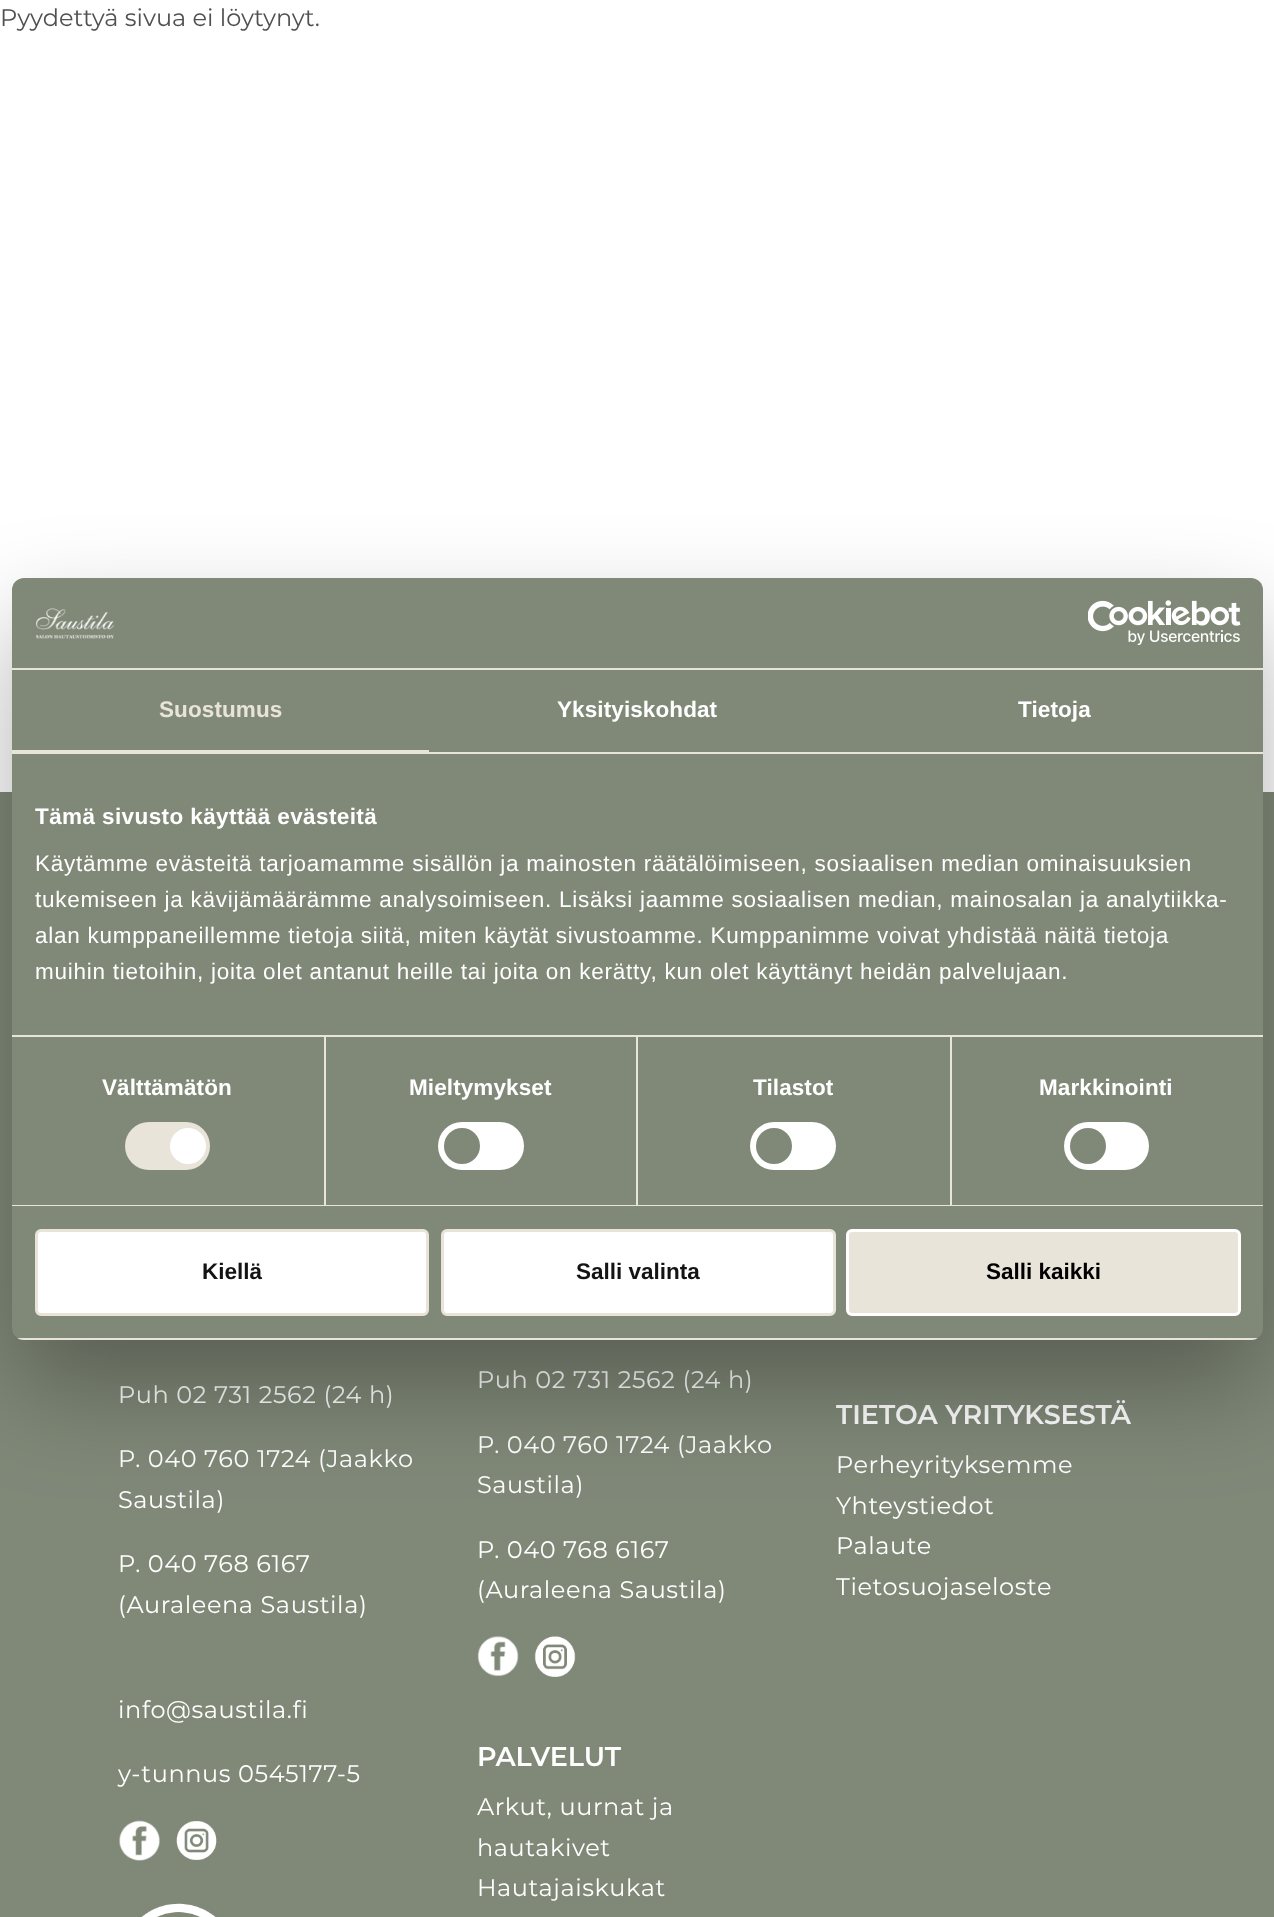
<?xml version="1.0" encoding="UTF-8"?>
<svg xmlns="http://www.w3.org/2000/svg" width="1274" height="1917">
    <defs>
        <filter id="blur1" x="-50%" y="-200%" width="200%" height="500%"><feGaussianBlur stdDeviation="51"/></filter>
        <clipPath id="clip1"><rect x="12" y="578" width="1251" height="762" rx="12"/></clipPath>
    </defs>
    <rect width="100%" height="100%" fill="#FFFFFF"/>
    <text x="0" y="26" font-family="Montserrat" font-size="24" fill="#505050">Pyydettyä sivua ei löytynyt.</text>
    <rect x="0" y="792" width="1274" height="1125" fill="#808978"/>
    <text x="118" y="1403" font-family="Montserrat" font-size="24" letter-spacing="0.6" fill="#FFFFFF">Puh 02 731 2562 (24 h)</text>
    <text font-family="Montserrat" font-size="24" letter-spacing="0.6" fill="#FFFFFF">
        <tspan x="118" y="1467">P. 040 760 1724 (Jaakko</tspan>
        <tspan x="118" y="1508">Saustila)</tspan>
    </text>
    <text font-family="Montserrat" font-size="24" letter-spacing="0.6" fill="#FFFFFF">
        <tspan x="118" y="1572">P. 040 768 6167</tspan>
        <tspan x="118" y="1613">(Auraleena Saustila)</tspan>
    </text>
    <text x="118" y="1718" font-family="Montserrat" font-size="24" letter-spacing="0.6" fill="#FFFFFF">info@saustila.fi</text>
    <text x="118" y="1782" font-family="Montserrat" font-size="24" letter-spacing="0.6" fill="#FFFFFF">y-tunnus 0545177-5</text>
    <image x="119" y="1820" width="41" height="41" href="img_01.png"/>
    <image x="176" y="1821" width="41" height="39" href="img_02.png"/>
    <image x="141" y="1903" width="75" height="14" href="img_03.png"/>
    <text x="477" y="1388" font-family="Montserrat" font-size="24" letter-spacing="0.6" fill="#FFFFFF">Puh 02 731 2562 (24 h)</text>
    <text font-family="Montserrat" font-size="24" letter-spacing="0.6" fill="#FFFFFF">
        <tspan x="477" y="1453">P. 040 760 1724 (Jaakko</tspan>
        <tspan x="477" y="1493">Saustila)</tspan>
    </text>
    <text font-family="Montserrat" font-size="24" letter-spacing="0.6" fill="#FFFFFF">
        <tspan x="477" y="1558">P. 040 768 6167</tspan>
        <tspan x="477" y="1598">(Auraleena Saustila)</tspan>
    </text>
    <image x="477" y="1636" width="42" height="41" href="img_04.png"/>
    <image x="534" y="1636" width="42" height="41" href="img_05.png"/>
    <text x="477" y="1766" font-family="Montserrat" font-size="27" font-weight="600" fill="#FFFFFF">PALVELUT</text>
    <text font-family="Montserrat" font-size="24" letter-spacing="0.6" fill="#FFFFFF">
        <tspan x="477" y="1815">Arkut, uurnat ja</tspan>
        <tspan x="477" y="1856">hautakivet</tspan>
        <tspan x="477" y="1896">Hautajaiskukat</tspan>
    </text>
    <text x="836" y="1424" font-family="Montserrat" font-size="27" font-weight="600" fill="#FFFFFF">TIETOA YRITYKSESTÄ</text>
    <text font-family="Montserrat" font-size="24" letter-spacing="0.6" fill="#FFFFFF">
        <tspan x="836" y="1473">Perheyrityksemme</tspan>
        <tspan x="836" y="1514">Yhteystiedot</tspan>
        <tspan x="836" y="1554">Palaute</tspan>
        <tspan x="836" y="1595">Tietosuojaseloste</tspan>
    </text>
    <rect x="12" y="626" width="1251" height="762" rx="12" fill="#000000" fill-opacity="0.3" filter="url(#blur1)"/>
    <rect x="12" y="578" width="1251" height="762" rx="12" fill="#808978"/>
    <rect x="12" y="668" width="1251" height="2" fill="#E9E4DA"/>
    <image x="36" y="608" width="78" height="31" href="img_06.png"/>
    <image x="1088" y="600" width="153" height="45" href="img_07.png"/>
    <rect x="12" y="752" width="1251" height="2" fill="#E9E4DA"/>
    <rect x="12" y="750" width="417" height="2" fill="#E9E4DA"/>
    <text x="159" y="717" font-family="Liberation Sans" font-size="22.5" font-weight="700" letter-spacing="0.1" fill="#E9E4DA">Suostumus</text>
    <text x="557" y="717" font-family="Liberation Sans" font-size="22.5" font-weight="700" letter-spacing="0.1" fill="#FFFFFF">Yksityiskohdat</text>
    <text x="1018" y="717" font-family="Liberation Sans" font-size="22.5" font-weight="700" letter-spacing="0.1" fill="#FFFFFF">Tietoja</text>
    <rect x="12" y="1035" width="1251" height="2" fill="#E9E4DA"/>
    <text x="35" y="824" font-family="Liberation Sans" font-size="22.5" font-weight="700" letter-spacing="0.4" fill="#FFFFFF">Tämä sivusto käyttää evästeitä</text>
    <text font-family="Liberation Sans" font-size="22.5" letter-spacing="0.75" fill="#FFFFFF">
        <tspan x="35" y="871">Käytämme evästeitä tarjoamamme sisällön ja mainosten räätälöimiseen, sosiaalisen median ominaisuuksien</tspan>
        <tspan x="35" y="907">tukemiseen ja kävijämäärämme analysoimiseen. Lisäksi jaamme sosiaalisen median, mainosalan ja analytiikka-</tspan>
        <tspan x="35" y="943">alan kumppaneillemme tietoja siitä, miten käytät sivustoamme. Kumppanimme voivat yhdistää näitä tietoja</tspan>
        <tspan x="35" y="979">muihin tietoihin, joita olet antanut heille tai joita on kerätty, kun olet käyttänyt heidän palvelujaan.</tspan>
    </text>
    <rect x="12" y="1205" width="1251" height="1" fill="#E9E4DA"/>
    <rect x="324" y="1037" width="2" height="168" fill="#E9E4DA"/>
    <text x="102" y="1095" font-family="Liberation Sans" font-size="22.5" font-weight="700" letter-spacing="0.1" fill="#FFFFFF">Välttämätön</text>
    <rect x="125" y="1122" width="85" height="48" rx="24" fill="#E9E4DA"/>
    <circle cx="188" cy="1146" r="18" fill="#FFFFFF"/>
    <rect x="636" y="1037" width="2" height="168" fill="#E9E4DA"/>
    <text x="409" y="1095" font-family="Liberation Sans" font-size="22.5" font-weight="700" letter-spacing="0.1" fill="#FFFFFF">Mieltymykset</text>
    <rect x="438" y="1122" width="86" height="48" rx="24" fill="#FFFFFF"/>
    <circle cx="462" cy="1146" r="18" fill="#808978"/>
    <rect x="950" y="1037" width="2" height="168" fill="#E9E4DA"/>
    <text x="753" y="1095" font-family="Liberation Sans" font-size="22.5" font-weight="700" letter-spacing="0.1" fill="#FFFFFF">Tilastot</text>
    <rect x="750" y="1122" width="86" height="48" rx="24" fill="#FFFFFF"/>
    <circle cx="774" cy="1146" r="18" fill="#808978"/>
    <text x="1039" y="1095" font-family="Liberation Sans" font-size="22.5" font-weight="700" letter-spacing="0.1" fill="#FFFFFF">Markkinointi</text>
    <rect x="1064" y="1122" width="85" height="48" rx="24" fill="#FFFFFF"/>
    <circle cx="1088" cy="1146" r="18" fill="#808978"/>
    <g clip-path="url(#clip1)">
        <rect x="12" y="1338" width="1251" height="2" fill="#E9E4DA"/>
    </g>
    <rect x="36.5" y="1230.5" width="391" height="84" rx="4.5" fill="#FFFFFF" stroke="#E9E4DA" stroke-width="3"/>
    <text x="202" y="1279" font-family="Liberation Sans" font-size="22.5" font-weight="700" fill="#141414">Kiellä</text>
    <rect x="442.5" y="1230.5" width="392" height="84" rx="4.5" fill="#FFFFFF" stroke="#E9E4DA" stroke-width="3"/>
    <text x="576" y="1279" font-family="Liberation Sans" font-size="22.5" font-weight="700" fill="#141414">Salli valinta</text>
    <rect x="847.5" y="1230.5" width="392" height="84" rx="4.5" fill="#E9E4DA" stroke="#FFFFFF" stroke-width="3"/>
    <text x="986" y="1279" font-family="Liberation Sans" font-size="22.5" font-weight="700" fill="#000000">Salli kaikki</text>
</svg>
